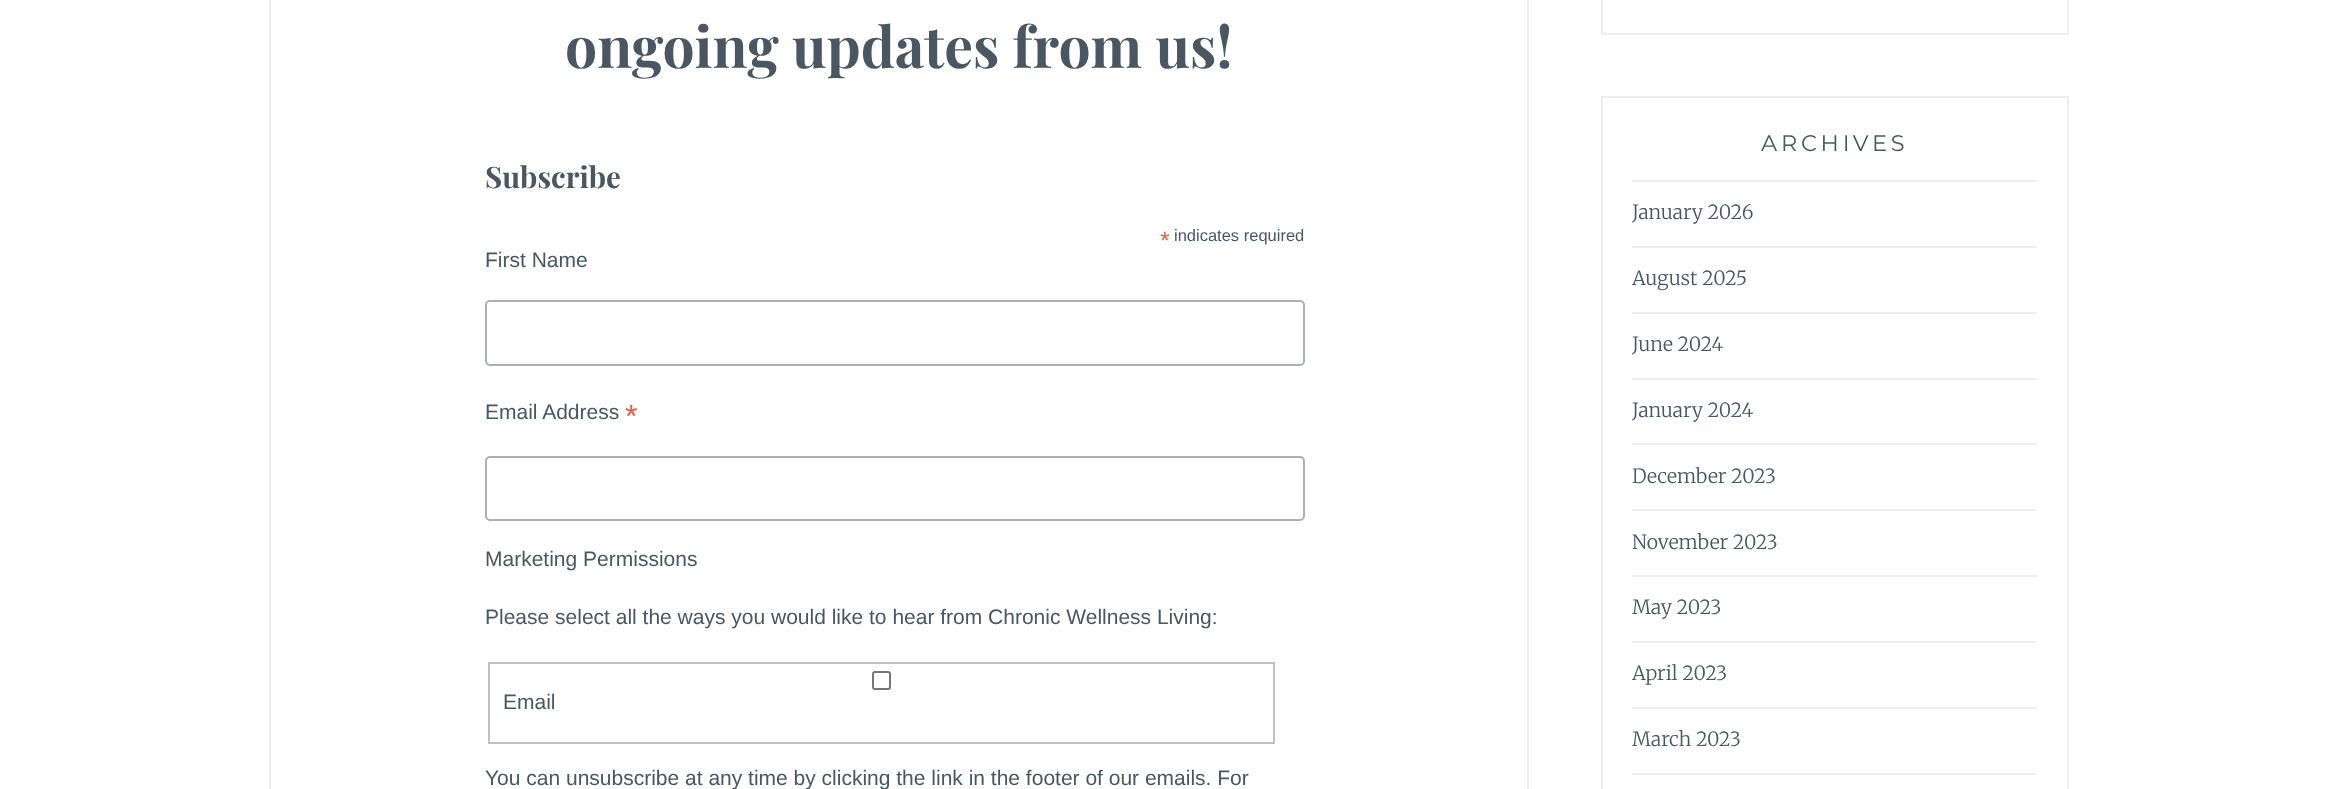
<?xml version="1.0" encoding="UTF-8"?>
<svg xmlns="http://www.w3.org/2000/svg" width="2336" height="789">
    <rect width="100%" height="100%" fill="#FFFFFF"/>
    <rect x="270" y="-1" width="1258" height="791" fill="none" stroke="#EEEEEE" stroke-width="2"/>
    <text x="565" y="68" font-family="Playfair Display" font-size="57" font-weight="700" fill="#495762">ongoing updates from us!</text>
    <text x="485" y="188" font-family="Playfair Display" font-size="29.5" font-weight="700" fill="#495762">Subscribe</text>
    <text x="1160" y="249" font-family="Liberation Sans" font-size="25" fill="#E85C41">*</text>
    <text x="1174" y="241" font-family="Liberation Sans" font-size="16.5" fill="#495762">indicates required</text>
    <text x="485" y="267" font-family="Liberation Sans" font-size="21" fill="#495762">First Name</text>
    <rect x="486" y="301" width="818" height="64" rx="4" fill="none" stroke="#ABB0B2" stroke-width="2"/>
    <text x="485" y="419" font-family="Liberation Sans" font-size="21" fill="#495762">Email Address</text>
    <text x="625" y="427" font-family="Liberation Sans" font-size="32" fill="#E85C41">*</text>
    <rect x="486" y="457" width="818" height="63" rx="4" fill="none" stroke="#ABB0B2" stroke-width="2"/>
    <text x="485" y="566" font-family="Liberation Sans" font-size="21" fill="#495762">Marketing Permissions</text>
    <text x="485" y="624" font-family="Liberation Sans" font-size="21" fill="#495762">Please select all the ways you would like to hear from Chronic Wellness Living:</text>
    <rect x="489" y="663" width="785" height="80" fill="none" stroke="#C0C0C0" stroke-width="2"/>
    <rect x="873" y="672" width="17" height="17" rx="2" fill="none" stroke="#767676" stroke-width="2"/>
    <text x="503" y="709" font-family="Liberation Sans" font-size="21" fill="#495762">Email</text>
    <text x="485" y="785" font-family="Liberation Sans" font-size="21" fill="#495762">You can unsubscribe at any time by clicking the link in the footer of our emails. For</text>
    <rect x="1602" y="-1" width="466" height="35" fill="none" stroke="#EEEEEE" stroke-width="2"/>
    <rect x="1602" y="97" width="466" height="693" fill="none" stroke="#EEEEEE" stroke-width="2"/>
    <text x="1761" y="151" font-family="Montserrat" font-size="22.5" letter-spacing="3.75" fill="#495762">ARCHIVES</text>
    <rect x="1632" y="180" width="405" height="2" fill="#EEEEEE"/>
    <text x="1632" y="219" font-family="Merriweather" font-size="19.5" font-weight="300" fill="#495762">January 2026</text>
    <rect x="1632" y="246" width="405" height="2" fill="#EEEEEE"/>
    <text x="1632" y="285" font-family="Merriweather" font-size="19.5" font-weight="300" fill="#495762">August 2025</text>
    <rect x="1632" y="312" width="405" height="2" fill="#EEEEEE"/>
    <text x="1632" y="351" font-family="Merriweather" font-size="19.5" font-weight="300" fill="#495762">June 2024</text>
    <rect x="1632" y="378" width="405" height="2" fill="#EEEEEE"/>
    <text x="1632" y="417" font-family="Merriweather" font-size="19.5" font-weight="300" fill="#495762">January 2024</text>
    <rect x="1632" y="443" width="405" height="2" fill="#EEEEEE"/>
    <text x="1632" y="483" font-family="Merriweather" font-size="19.5" font-weight="300" fill="#495762">December 2023</text>
    <rect x="1632" y="509" width="405" height="2" fill="#EEEEEE"/>
    <text x="1632" y="549" font-family="Merriweather" font-size="19.5" font-weight="300" fill="#495762">November 2023</text>
    <rect x="1632" y="575" width="405" height="2" fill="#EEEEEE"/>
    <text x="1632" y="614" font-family="Merriweather" font-size="19.5" font-weight="300" fill="#495762">May 2023</text>
    <rect x="1632" y="641" width="405" height="2" fill="#EEEEEE"/>
    <text x="1632" y="680" font-family="Merriweather" font-size="19.5" font-weight="300" fill="#495762">April 2023</text>
    <rect x="1632" y="707" width="405" height="2" fill="#EEEEEE"/>
    <text x="1632" y="746" font-family="Merriweather" font-size="19.5" font-weight="300" fill="#495762">March 2023</text>
    <rect x="1632" y="773" width="405" height="2" fill="#EEEEEE"/>
</svg>
